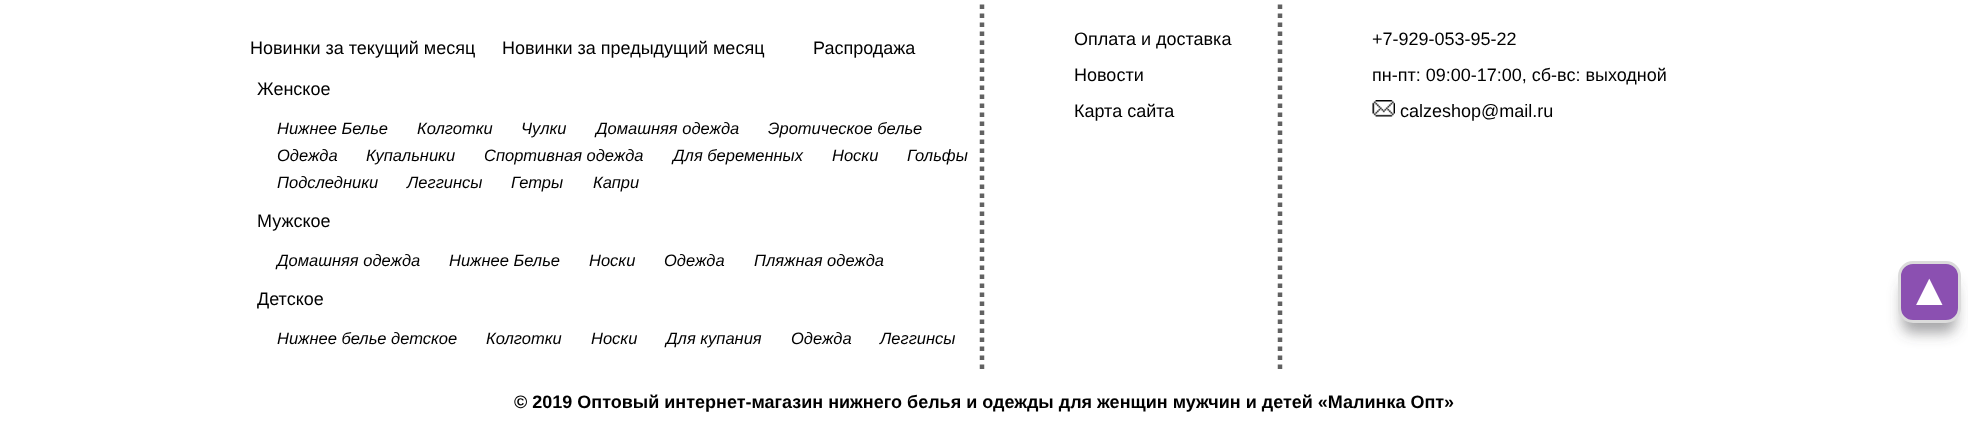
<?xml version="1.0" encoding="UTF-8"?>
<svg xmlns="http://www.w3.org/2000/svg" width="1968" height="434">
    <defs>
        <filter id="blur1" x="-50%" y="-200%" width="200%" height="500%"><feGaussianBlur stdDeviation="7"/></filter>
    </defs>
    <rect width="100%" height="100%" fill="#FFFFFF"/>
    <path d="M 982 -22.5 V 370.5" fill="none" stroke="#616161" stroke-width="4.5" stroke-dasharray="4.5 4.5"/>
    <text x="250" y="54" font-family="Liberation Sans" font-size="18" fill="#000000">Новинки за текущий месяц</text>
    <text x="502" y="54" font-family="Liberation Sans" font-size="18" fill="#000000">Новинки за предыдущий месяц</text>
    <text x="813" y="54" font-family="Liberation Sans" font-size="18" fill="#000000">Распродажа</text>
    <text x="257" y="95" font-family="Liberation Sans" font-size="18" fill="#000000">Женское</text>
    <text x="277" y="134" font-family="Liberation Sans" font-size="16.5" font-style="italic" fill="#000000">Нижнее Белье</text>
    <text x="417" y="134" font-family="Liberation Sans" font-size="16.5" font-style="italic" fill="#000000">Колготки</text>
    <text x="521" y="134" font-family="Liberation Sans" font-size="16.5" font-style="italic" fill="#000000">Чулки</text>
    <text x="596" y="134" font-family="Liberation Sans" font-size="16.5" font-style="italic" fill="#000000">Домашняя одежда</text>
    <text x="768" y="134" font-family="Liberation Sans" font-size="16.5" font-style="italic" fill="#000000">Эротическое белье</text>
    <text x="277" y="161" font-family="Liberation Sans" font-size="16.5" font-style="italic" fill="#000000">Одежда</text>
    <text x="366" y="161" font-family="Liberation Sans" font-size="16.5" font-style="italic" fill="#000000">Купальники</text>
    <text x="484" y="161" font-family="Liberation Sans" font-size="16.5" font-style="italic" fill="#000000">Спортивная одежда</text>
    <text x="673" y="161" font-family="Liberation Sans" font-size="16.5" font-style="italic" fill="#000000">Для беременных</text>
    <text x="832" y="161" font-family="Liberation Sans" font-size="16.5" font-style="italic" fill="#000000">Носки</text>
    <text x="907" y="161" font-family="Liberation Sans" font-size="16.5" font-style="italic" fill="#000000">Гольфы</text>
    <text x="277" y="188" font-family="Liberation Sans" font-size="16.5" font-style="italic" fill="#000000">Подследники</text>
    <text x="407" y="188" font-family="Liberation Sans" font-size="16.5" font-style="italic" fill="#000000">Леггинсы</text>
    <text x="511" y="188" font-family="Liberation Sans" font-size="16.5" font-style="italic" fill="#000000">Гетры</text>
    <text x="593" y="188" font-family="Liberation Sans" font-size="16.5" font-style="italic" fill="#000000">Капри</text>
    <text x="257" y="227" font-family="Liberation Sans" font-size="18" fill="#000000">Мужское</text>
    <text x="277" y="266" font-family="Liberation Sans" font-size="16.5" font-style="italic" fill="#000000">Домашняя одежда</text>
    <text x="449" y="266" font-family="Liberation Sans" font-size="16.5" font-style="italic" fill="#000000">Нижнее Белье</text>
    <text x="589" y="266" font-family="Liberation Sans" font-size="16.5" font-style="italic" fill="#000000">Носки</text>
    <text x="664" y="266" font-family="Liberation Sans" font-size="16.5" font-style="italic" fill="#000000">Одежда</text>
    <text x="754" y="266" font-family="Liberation Sans" font-size="16.5" font-style="italic" fill="#000000">Пляжная одежда</text>
    <text x="257" y="305" font-family="Liberation Sans" font-size="18" fill="#000000">Детское</text>
    <text x="277" y="344" font-family="Liberation Sans" font-size="16.5" font-style="italic" fill="#000000">Нижнее белье детское</text>
    <text x="486" y="344" font-family="Liberation Sans" font-size="16.5" font-style="italic" fill="#000000">Колготки</text>
    <text x="591" y="344" font-family="Liberation Sans" font-size="16.5" font-style="italic" fill="#000000">Носки</text>
    <text x="666" y="344" font-family="Liberation Sans" font-size="16.5" font-style="italic" fill="#000000">Для купания</text>
    <text x="791" y="344" font-family="Liberation Sans" font-size="16.5" font-style="italic" fill="#000000">Одежда</text>
    <text x="880" y="344" font-family="Liberation Sans" font-size="16.5" font-style="italic" fill="#000000">Леггинсы</text>
    <path d="M 1280 -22.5 V 370.5" fill="none" stroke="#616161" stroke-width="4.5" stroke-dasharray="4.5 4.5"/>
    <text x="1074" y="45" font-family="Liberation Sans" font-size="18" fill="#000000">Оплата и доставка</text>
    <text x="1074" y="81" font-family="Liberation Sans" font-size="18" fill="#000000">Новости</text>
    <text x="1074" y="117" font-family="Liberation Sans" font-size="18" fill="#000000">Карта сайта</text>
    <text x="1372" y="45" font-family="Liberation Sans" font-size="18" fill="#000000">+7-929-053-95-22</text>
    <text x="1372" y="81" font-family="Liberation Sans" font-size="18" fill="#000000">пн-пт: 09:00-17:00, сб-вс: выходной</text>
    <image x="1372" y="100" width="23" height="17" href="img_01.png"/>
    <text x="1400" y="117" font-family="Liberation Sans" font-size="18" fill="#000000">calzeshop@mail.ru</text>
    <text x="514" y="408" font-family="Liberation Sans" font-size="18" font-weight="700" fill="#000000">© 2019 Оптовый интернет-магазин нижнего белья и одежды для женщин мужчин и детей «Малинка Опт»</text>
    <rect x="1902" y="281" width="54" height="52" rx="11" fill="#4D4D51" fill-opacity="0.5" filter="url(#blur1)"/>
    <rect x="1899.5" y="262.5" width="60" height="59" rx="13.5" fill="#8B50B1" stroke="#DBDBDB" stroke-width="3"/>
    <text x="1907" y="305" font-family="Liberation Sans" font-size="45" fill="#FFFFFF">▲</text>
</svg>
